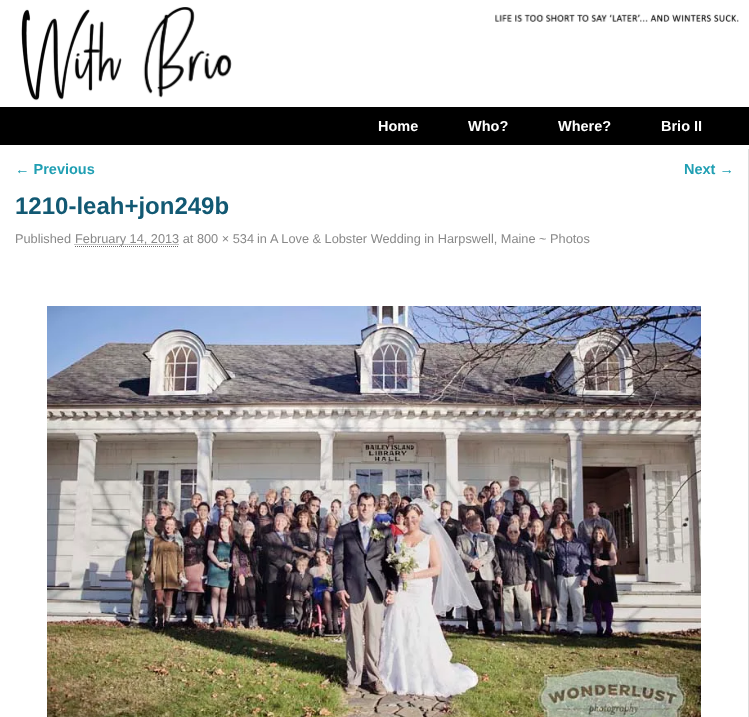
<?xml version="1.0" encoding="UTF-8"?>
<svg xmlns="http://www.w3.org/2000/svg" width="749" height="717">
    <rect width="100%" height="100%" fill="#FFFFFF"/>
    <image x="21" y="7" width="718" height="94" href="img_01.png"/>
    <rect x="0" y="107" width="749" height="38" fill="#000000"/>
    <text x="378" y="131" font-family="Liberation Sans" font-size="14.5" font-weight="700" fill="#FFFFFF">Home</text>
    <text x="468" y="131" font-family="Liberation Sans" font-size="14.5" font-weight="700" fill="#FFFFFF">Who?</text>
    <text x="558" y="131" font-family="Liberation Sans" font-size="14.5" font-weight="700" fill="#FFFFFF">Where?</text>
    <text x="661" y="131" font-family="Liberation Sans" font-size="14.5" font-weight="700" fill="#FFFFFF">Brio II</text>
    <rect x="748" y="149" width="1" height="568" fill="#DDDDDD"/>
    <text x="15" y="174" font-family="Liberation Sans" font-size="14.5" font-weight="700" fill="#209FB3">← Previous</text>
    <text x="684" y="174" font-family="Liberation Sans" font-size="14.5" font-weight="700" fill="#209FB3">Next →</text>
    <text x="15" y="214" font-family="Liberation Sans" font-size="24" font-weight="700" fill="#125973">1210-leah+jon249b</text>
    <text x="15" y="243" font-family="Liberation Sans" font-size="12.75" fill="#888888">Published</text>
    <path d="M 74.5 244.5 H 179" fill="none" stroke="#888888" stroke-dasharray="1 1"/>
    <text x="75" y="243" font-family="Liberation Sans" font-size="12.75" fill="#888888">February 14, 2013 at 800 × 534</text>
    <path d="M 75 246.5 H 179" fill="none" stroke="#666666" stroke-dasharray="1 1"/>
    <text x="257" y="243" font-family="Liberation Sans" font-size="12.75" fill="#888888">in</text>
    <text x="270" y="243" font-family="Liberation Sans" font-size="12.75" fill="#888888">A Love &amp; Lobster Wedding in Harpswell, Maine ~ Photos</text>
    <image x="47" y="306" width="654" height="411" href="img_02.png"/>
</svg>
